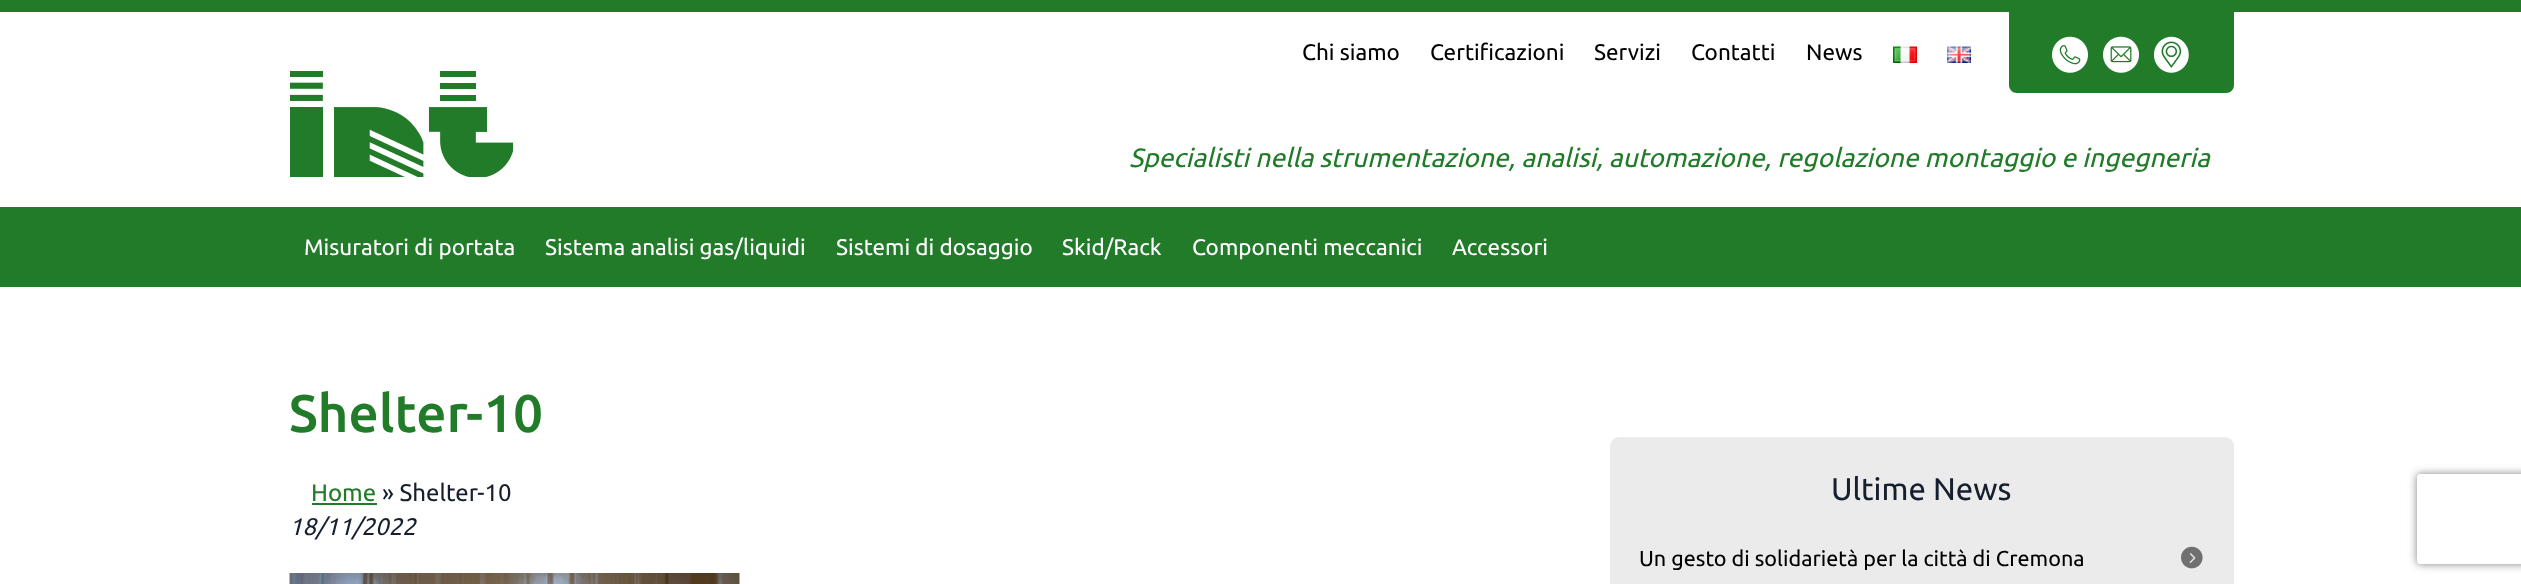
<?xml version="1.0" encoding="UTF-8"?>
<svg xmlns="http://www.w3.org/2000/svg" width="2521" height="584">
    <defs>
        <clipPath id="clip1"><path d="M 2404 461 H 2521 V 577 H 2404 Z M 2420 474 H 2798 C 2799.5 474 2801 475.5 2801 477 V 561 C 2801 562.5 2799.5 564 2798 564 H 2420 C 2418.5 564 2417 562.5 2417 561 V 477 C 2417 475.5 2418.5 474 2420 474 Z" clip-rule="evenodd"/></clipPath>
        <filter id="blur1" x="-50%" y="-200%" width="200%" height="500%"><feGaussianBlur stdDeviation="4"/></filter>
    </defs>
    <rect width="100%" height="100%" fill="#FFFFFF"/>
    <rect x="0" y="0" width="2521" height="12" fill="#217B29"/>
    <text x="1302" y="60" font-family="Ubuntu" font-size="22.5" fill="#000000">Chi siamo</text>
    <text x="1430" y="60" font-family="Ubuntu" font-size="22.5" fill="#000000">Certificazioni</text>
    <text x="1594" y="60" font-family="Ubuntu" font-size="22.5" fill="#000000">Servizi</text>
    <text x="1691" y="60" font-family="Ubuntu" font-size="22.5" fill="#000000">Contatti</text>
    <text x="1806" y="60" font-family="Ubuntu" font-size="22.5" fill="#000000">News</text>
    <image x="1893" y="46" width="24" height="17" href="img_01.png"/>
    <image x="1947" y="46" width="24" height="17" href="img_02.png"/>
    <path d="M 2009 12 H 2234 V 85 C 2234 89.5 2230.5 93 2226 93 H 2017 C 2012.5 93 2009 89.5 2009 85 Z" fill="#217B29"/>
    <image x="2052" y="36" width="36" height="37" href="img_03.png"/>
    <image x="2103" y="36" width="36" height="37" href="img_04.png"/>
    <image x="2154" y="36" width="35" height="37" href="img_05.png"/>
    <image x="290" y="71" width="223" height="106" href="img_06.png"/>
    <text x="1129" y="167" font-family="Ubuntu" font-size="26.4" font-style="italic" fill="#217B29">Specialisti nella strumentazione, analisi, automazione, regolazione montaggio e ingegneria</text>
    <rect x="0" y="207" width="2521" height="80" fill="#217B29"/>
    <text x="304" y="255" font-family="Ubuntu" font-size="22.5" fill="#FFFFFF">Misuratori di portata</text>
    <text x="545" y="255" font-family="Ubuntu" font-size="22.5" fill="#FFFFFF">Sistema analisi gas/liquidi</text>
    <text x="836" y="255" font-family="Ubuntu" font-size="22.5" fill="#FFFFFF">Sistemi di dosaggio</text>
    <text x="1062" y="255" font-family="Ubuntu" font-size="22.5" fill="#FFFFFF">Skid/Rack</text>
    <text x="1192" y="255" font-family="Ubuntu" font-size="22.5" fill="#FFFFFF">Componenti meccanici</text>
    <text x="1452" y="255" font-family="Ubuntu" font-size="22.5" fill="#FFFFFF">Accessori</text>
    <text x="289" y="432" font-family="Ubuntu" font-size="53" font-weight="500" fill="#217B29">Shelter-10</text>
    <text x="311" y="501" font-family="Ubuntu" font-size="24" fill="#217B29">Home</text>
    <rect x="312" y="503" width="65" height="2" fill="#217B29"/>
    <text x="382" y="501" font-family="Ubuntu" font-size="24" fill="#161F2E">» Shelter-10</text>
    <text x="289" y="535" font-family="Ubuntu" font-size="24" font-style="italic" fill="#161F2E">18/11/2022</text>
    <image x="289" y="573" width="451" height="11" href="img_07.png"/>
    <rect x="1610" y="437" width="624" height="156" rx="9" fill="#EBEBEB"/>
    <text x="1831" y="500" font-family="Ubuntu" font-size="31.25" fill="#161F2E">Ultime News</text>
    <text x="1639" y="566" font-family="Ubuntu" font-size="21.6" fill="#000000">Un gesto di solidarietà per la città di Cremona</text>
    <image x="2181" y="546" width="22" height="23" href="img_08.png"/>
    <g clip-path="url(#clip1)">
        <rect x="2417" y="474" width="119" height="90" rx="3" fill="#808080" filter="url(#blur1)"/>
    </g>
</svg>
